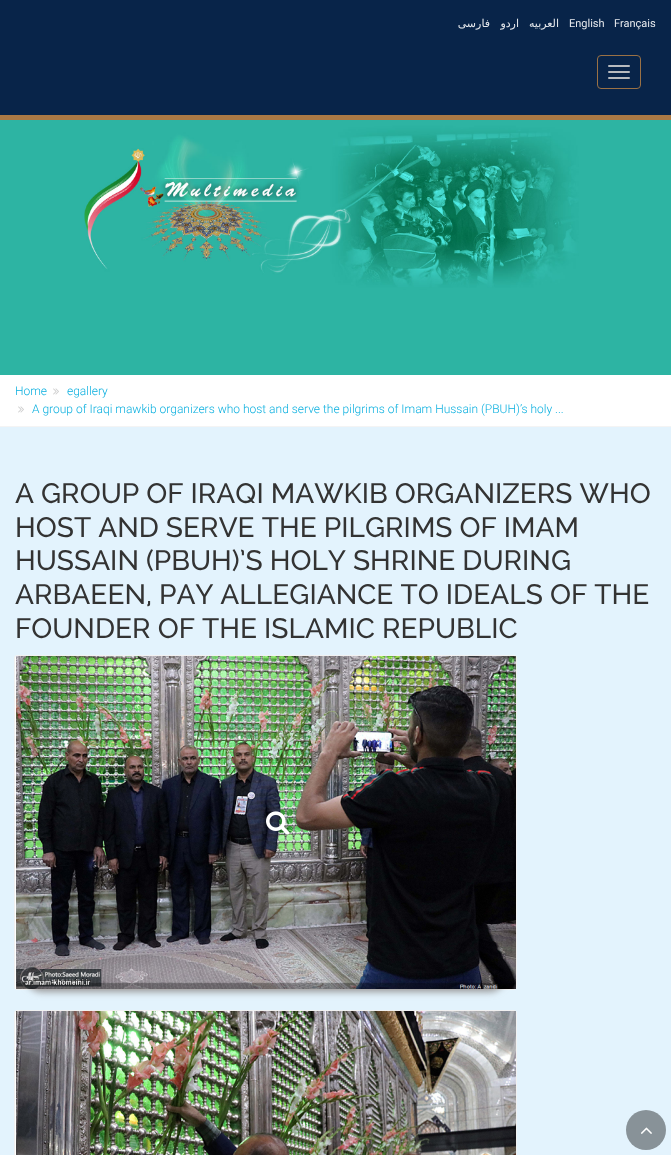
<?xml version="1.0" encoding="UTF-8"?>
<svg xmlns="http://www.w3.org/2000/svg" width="671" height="1155">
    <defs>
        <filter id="blur1" x="-50%" y="-200%" width="200%" height="500%"><feGaussianBlur stdDeviation="3.5"/></filter>
    </defs>
    <rect width="100%" height="100%" fill="#E3F3FD"/>
    <rect x="0" y="0" width="671" height="115" fill="#082449"/>
    <rect x="0" y="115" width="671" height="5" fill="#AA7945"/>
    <text x="490" y="27" font-family="DejaVu Sans" font-size="11" direction="rtl" fill="#E6E9ED">فارسی</text>
    <text x="519" y="27" font-family="DejaVu Sans" font-size="11" direction="rtl" fill="#E6E9ED">اردو</text>
    <text x="559" y="27" font-family="DejaVu Sans" font-size="11" direction="rtl" fill="#E6E9ED">العربیه</text>
    <text x="569" y="27" font-family="Roboto" font-size="11" fill="#E6E9ED">English</text>
    <text x="614" y="27" font-family="Roboto" font-size="11" fill="#E6E9ED">Français</text>
    <rect x="597.5" y="55.5" width="43" height="33" rx="3.5" fill="none" stroke="#9A7145"/>
    <rect x="608" y="65" width="22" height="2" rx="1" fill="#B8BBBF"/>
    <rect x="608" y="71" width="22" height="2" rx="1" fill="#B8BBBF"/>
    <rect x="608" y="77" width="22" height="2" rx="1" fill="#B8BBBF"/>
    <image x="0" y="120" width="671" height="255" href="img_01.png"/>
    <rect x="0" y="375" width="671" height="51" fill="#FFFFFF"/>
    <rect x="0" y="426" width="671" height="1" fill="#F4F4F4"/>
    <text x="15" y="395" font-family="Roboto" font-size="12" font-weight="300" fill="#09AFDF">Home</text>
    <image x="53" y="388" width="6" height="7" href="img_02.png"/>
    <text x="67" y="395" font-family="Roboto" font-size="12" font-weight="300" fill="#09AFDF">egallery</text>
    <image x="18" y="406" width="6" height="7" href="img_02.png"/>
    <text x="32" y="413" font-family="Roboto" font-size="12" font-weight="300" fill="#09AFDF">A group of Iraqi mawkib organizers who host and serve the pilgrims of Imam Hussain (PBUH)’s holy ...</text>
    <text font-family="Raleway" font-size="28" font-weight="500" fill="#333333">
        <tspan x="15" y="503">A GROUP OF IRAQI MAWKIB ORGANIZERS WHO</tspan>
        <tspan x="15" y="537">HOST AND SERVE THE PILGRIMS OF IMAM</tspan>
        <tspan x="15" y="570">HUSSAIN (PBUH)’S HOLY SHRINE DURING</tspan>
        <tspan x="15" y="604">ARBAEEN, PAY ALLEGIANCE TO IDEALS OF THE</tspan>
        <tspan x="15" y="638">FOUNDER OF THE ISLAMIC REPUBLIC</tspan>
    </text>
    <rect x="14.5" y="655.5" width="502" height="334" rx="2.5" fill="#FFFFFF" stroke="#F1F1F1"/>
    <rect x="25" y="826" width="481" height="166" rx="17" fill="#999999" filter="url(#blur1)"/>
    <image x="16" y="656" width="500" height="333" href="img_03.png"/>
    <image x="266" y="811" width="24" height="24" href="img_04.png"/>
    <rect x="15" y="988" width="1" height="1" fill="#FFFFFF"/>
    <rect x="14.5" y="1010.5" width="502" height="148" rx="2.5" fill="#FFFFFF" stroke="#F1F1F1"/>
    <image x="16" y="1011" width="500" height="144" href="img_05.png"/>
    <circle cx="646" cy="1130" r="20" fill="#889298"/>
    <image x="641" y="1127" width="11" height="7" href="img_06.png"/>
</svg>
